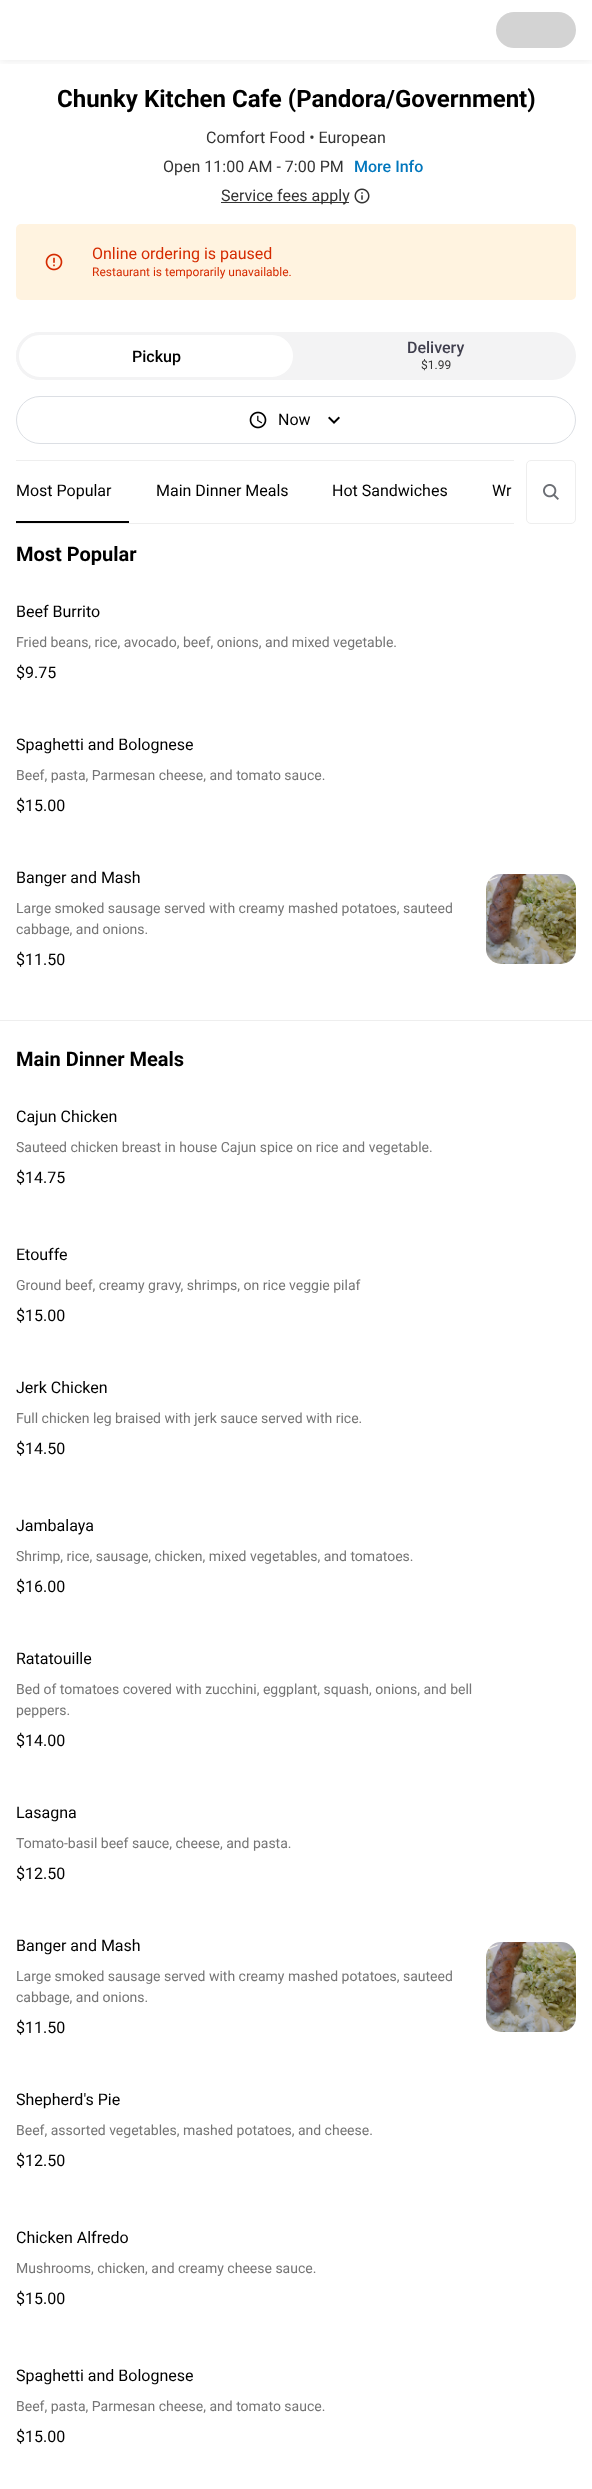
<svg xmlns="http://www.w3.org/2000/svg" width="592" height="2489" viewBox="0 0 592 2489">
  <style>
    .t1 { font: bold 24px Roboto; fill: #000; }
    .t2 { font: 16px Roboto; fill: #333; }
    .t3 { font: 500 16px Roboto; fill: #0277bd; }
    .t4 { font: 16px Roboto; fill: #d52b01; }
    .t5 { font: 12px Roboto; fill: #d52b01; }
    .t6 { font: 500 16px Roboto; fill: #403f4e; }
    .t7 { font: 12px Roboto; fill: #333; }
    .t8 { font: 500 16px Roboto; fill: #000; }
    .t9 { font: 16px Roboto; fill: #000; }
    .t10 { font: bold 20px Roboto; fill: #000; }
    .t11 { font: 14px Roboto; fill: #757575; }
  </style>
  <defs>
    <clipPath id="clip1"><rect x="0" y="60" width="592" height="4"/></clipPath>
  </defs>
  <rect width="100%" height="100%" fill="#fff"/>
  <g clip-path="url(#clip1)">
    <rect x="0" y="1" width="592" height="60" fill="#00000014" filter="blur(4px)"/>
  </g>
  <rect x="496" y="12" width="80" height="36" rx="18" fill="#d3d3d3"/>
  <text x="57" y="107" class="t1">Chunky Kitchen Cafe (Pandora/Government)</text>
  <text x="206" y="143" class="t2">Comfort Food • European</text>
  <text x="163" y="172" class="t2">Open 11:00 AM - 7:00 PM</text>
  <text x="354" y="172" class="t3">More Info</text>
  <rect x="221" y="202" width="128" height="1" fill="#333"/>
  <text x="221" y="201" class="t2">Service fees apply</text>
  <image x="354" y="188" width="16" height="16" href="images/1.png"/>
  <rect x="16" y="224" width="560" height="76" rx="5" fill="#fff3e0"/>
  <image x="45" y="253" width="18" height="18" href="images/2.png"/>
  <text x="92" y="259" class="t4">Online ordering is paused</text>
  <text x="92" y="276" class="t5">Restaurant is temporarily unavailable.</text>
  <rect x="16" y="332" width="560" height="48" rx="24" fill="#f3f3f4"/>
  <rect x="17.5" y="333.5" width="277" height="45" rx="22.5" fill="#fff" stroke="#f3f3f4" stroke-width="3"/>
  <text x="407" y="353" class="t6">Delivery</text>
  <text x="421" y="369" class="t7">$1.99</text>
  <text x="132" y="362" class="t8">Pickup</text>
  <rect x="16.5" y="396.5" width="559" height="47" rx="23.5" fill="none" stroke="#dcdfe4"/>
  <image x="249" y="411" width="18" height="18" href="images/3.png"/>
  <text x="278" y="425" class="t9">Now</text>
  <image x="328" y="416" width="12" height="8" href="images/4.png"/>
  <rect x="16" y="460" width="498" height="1" fill="#eee"/>
  <rect x="16" y="523" width="498" height="1" fill="#eee"/>
  <rect x="16" y="521" width="113" height="2" fill="#000"/>
  <text x="16" y="496" class="t9">Most Popular</text>
  <text x="156" y="496" class="t9">Main Dinner Meals</text>
  <text x="332" y="496" class="t9">Hot Sandwiches</text>
  <text x="492" y="496" class="t9">Wr</text>
  <rect x="526.5" y="460.5" width="49" height="63" rx="4.5" fill="none" stroke="#eee"/>
  <image x="543" y="484" width="16" height="16" href="images/5.png"/>
  <rect x="0" y="1020" width="592" height="1" fill="#eee"/>
  <text x="16" y="561" class="t10">Most Popular</text>
  <text x="16" y="617" class="t9">Beef Burrito</text>
  <text x="16" y="647" class="t11">Fried beans, rice, avocado, beef, onions, and mixed vegetable.</text>
  <text x="16" y="678" class="t9">$9.75</text>
  <text x="16" y="750" class="t9">Spaghetti and Bolognese</text>
  <text x="16" y="780" class="t11">Beef, pasta, Parmesan cheese, and tomato sauce.</text>
  <text x="16" y="811" class="t9">$15.00</text>
  <text x="16" y="883" class="t9">Banger and Mash</text>
  <text x="16" y="913" class="t11">Large smoked sausage served with creamy mashed potatoes, sauteed</text>
  <text x="16" y="934" class="t11">cabbage, and onions.</text>
  <text x="16" y="965" class="t9">$11.50</text>
  <image x="486" y="874" width="90" height="90" href="images/6.png"/>
  <text x="16" y="1066" class="t10">Main Dinner Meals</text>
  <text x="16" y="1122" class="t9">Cajun Chicken</text>
  <text x="16" y="1152" class="t11">Sauteed chicken breast in house Cajun spice on rice and vegetable.</text>
  <text x="16" y="1183" class="t9">$14.75</text>
  <text x="16" y="1260" class="t9">Etouffe</text>
  <text x="16" y="1290" class="t11">Ground beef, creamy gravy, shrimps, on rice veggie pilaf</text>
  <text x="16" y="1321" class="t9">$15.00</text>
  <text x="16" y="1393" class="t9">Jerk Chicken</text>
  <text x="16" y="1423" class="t11">Full chicken leg braised with jerk sauce served with rice.</text>
  <text x="16" y="1454" class="t9">$14.50</text>
  <text x="16" y="1531" class="t9">Jambalaya</text>
  <text x="16" y="1561" class="t11">Shrimp, rice, sausage, chicken, mixed vegetables, and tomatoes.</text>
  <text x="16" y="1592" class="t9">$16.00</text>
  <text x="16" y="1664" class="t9">Ratatouille</text>
  <text x="16" y="1694" class="t11">Bed of tomatoes covered with zucchini, eggplant, squash, onions, and bell</text>
  <text x="16" y="1715" class="t11">peppers.</text>
  <text x="16" y="1746" class="t9">$14.00</text>
  <text x="16" y="1818" class="t9">Lasagna</text>
  <text x="16" y="1848" class="t11">Tomato-basil beef sauce, cheese, and pasta.</text>
  <text x="16" y="1879" class="t9">$12.50</text>
  <text x="16" y="1951" class="t9">Banger and Mash</text>
  <text x="16" y="1981" class="t11">Large smoked sausage served with creamy mashed potatoes, sauteed</text>
  <text x="16" y="2002" class="t11">cabbage, and onions.</text>
  <text x="16" y="2033" class="t9">$11.50</text>
  <image x="486" y="1942" width="90" height="90" href="images/6.png"/>
  <text x="16" y="2105" class="t9">Shepherd's Pie</text>
  <text x="16" y="2135" class="t11">Beef, assorted vegetables, mashed potatoes, and cheese.</text>
  <text x="16" y="2166" class="t9">$12.50</text>
  <text x="16" y="2243" class="t9">Chicken Alfredo</text>
  <text x="16" y="2273" class="t11">Mushrooms, chicken, and creamy cheese sauce.</text>
  <text x="16" y="2304" class="t9">$15.00</text>
  <text x="16" y="2381" class="t9">Spaghetti and Bolognese</text>
  <text x="16" y="2411" class="t11">Beef, pasta, Parmesan cheese, and tomato sauce.</text>
  <text x="16" y="2442" class="t9">$15.00</text>
</svg>
